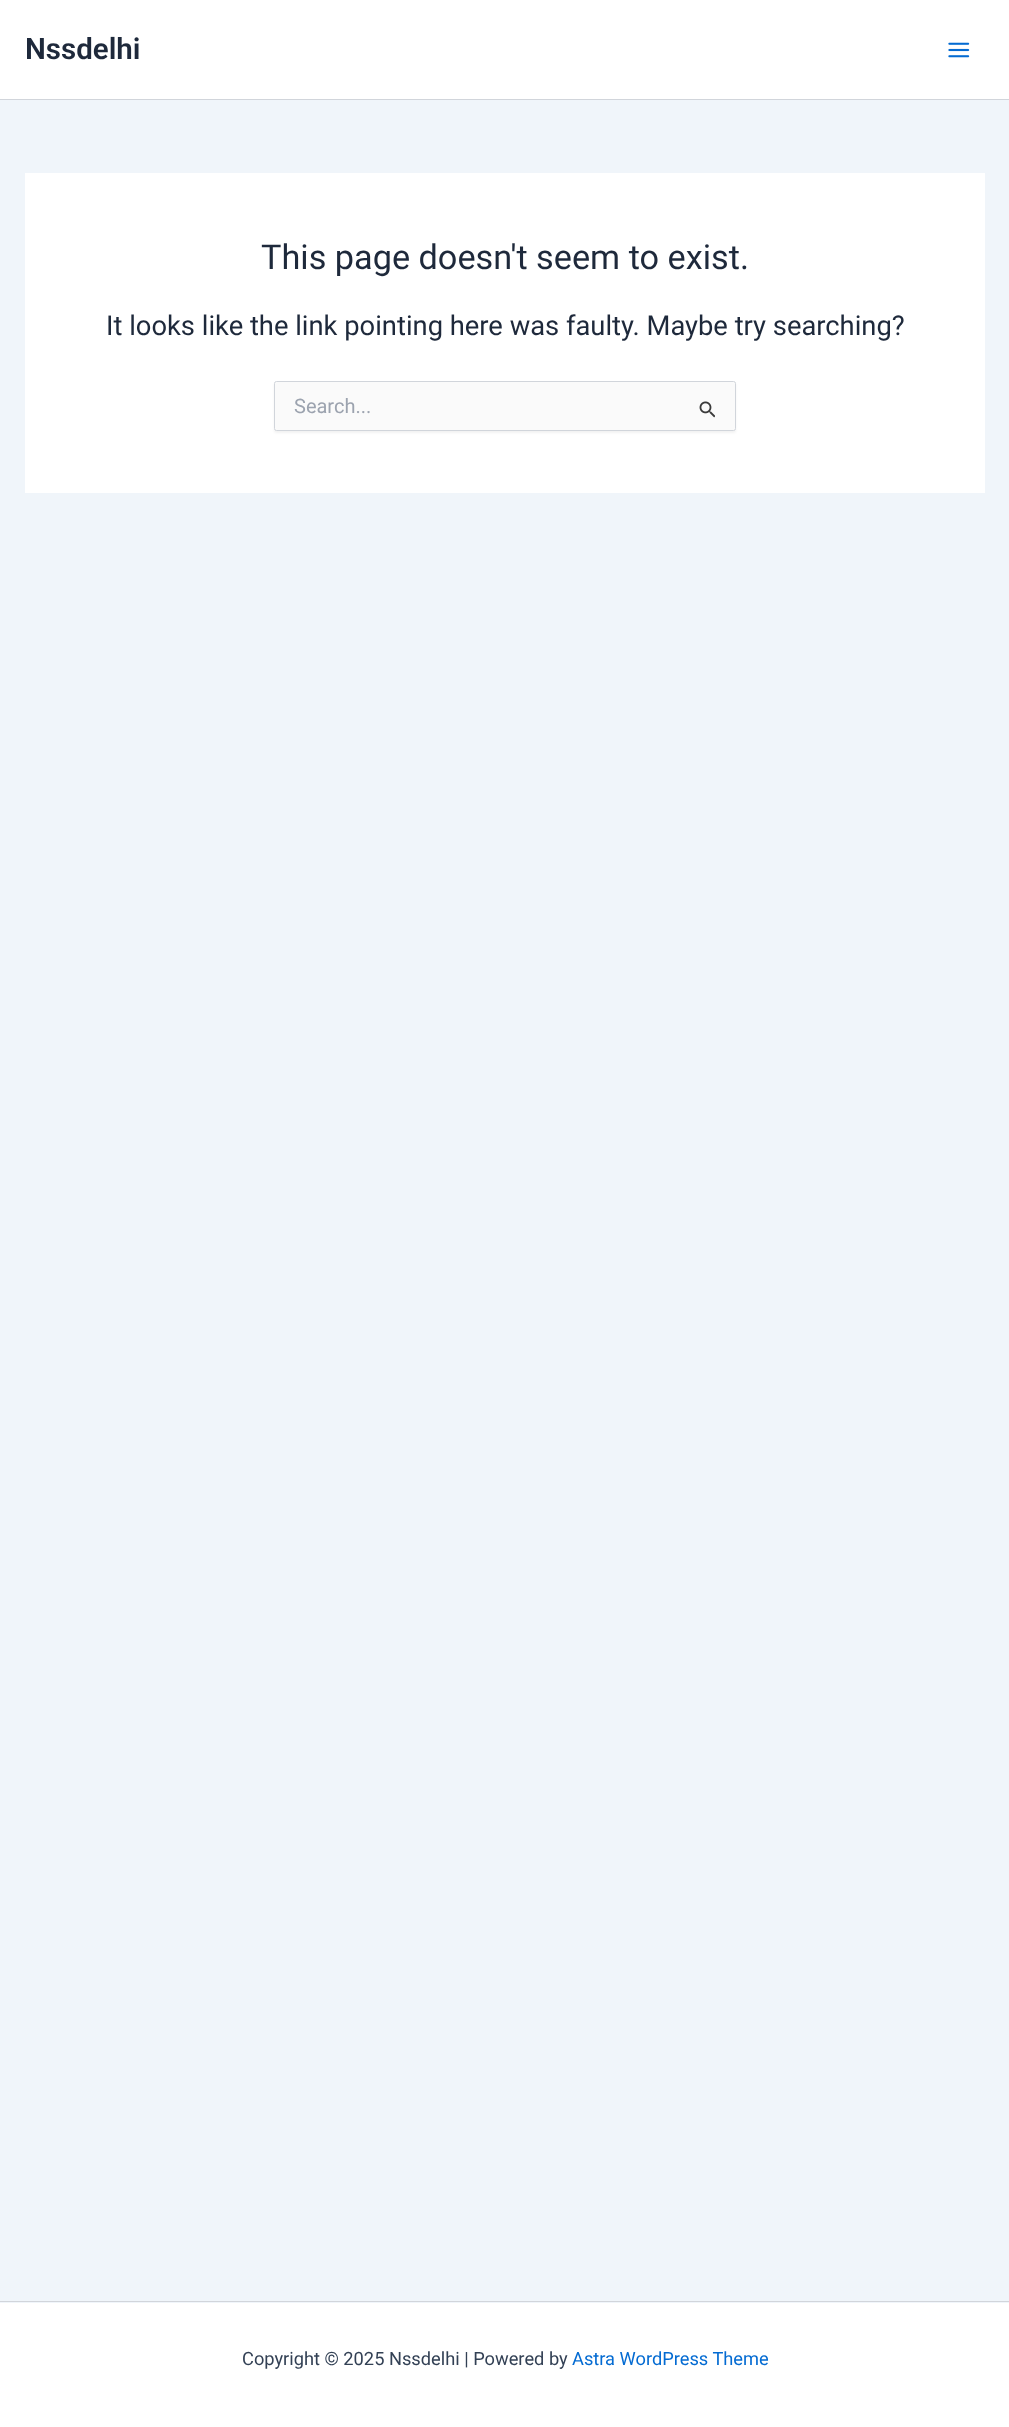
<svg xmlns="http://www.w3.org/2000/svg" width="1009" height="2427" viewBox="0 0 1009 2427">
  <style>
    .t1 { font: 600 29.5px Roboto; fill: #1e293b; }
    .t2 { font: 34.25px Roboto; fill: #1e293b; }
    .t3 { font: 27.35px Roboto; fill: #1e293b; }
    .t4 { font: 20px Roboto; fill: #9ca3af; }
    .t5 { font: 18.25px Roboto; fill: #334155; }
    .t6 { font: 18.25px Roboto; fill: #046bd2; }
  </style>
  <rect width="100%" height="100%" fill="#f0f5fa"/>
  <rect x="0" y="0" width="1009" height="99" fill="#fff"/>
  <rect x="0" y="99" width="1009" height="1" fill="#d1d5db"/>
  <text x="25" y="59" class="t1">Nssdelhi</text>
  <image x="948" y="42" width="22" height="16" href="images/1.png"/>
  <rect x="25" y="173" width="960" height="320" fill="#fff"/>
  <text x="261" y="269" class="t2">This page doesn't seem to exist.</text>
  <text x="106" y="335" class="t3">It looks like the link pointing here was faulty. Maybe try searching?</text>
  <rect x="274" y="383" width="462" height="50" rx="2.5" fill="#0000000d" filter="blur(1px)"/>
  <rect x="274.5" y="381.5" width="461" height="49" rx="2" fill="#fafafa" stroke="#d1d5db"/>
  <text x="294" y="413" class="t4">Search...</text>
  <image x="699" y="401" width="16" height="17" href="images/2.png"/>
  <rect x="0" y="2303" width="1009" height="124" fill="#fff"/>
  <rect x="0" y="2301" width="1009" height="1" fill="#d1d5db"/>
  <text x="242" y="2365" class="t5">Copyright © 2025 Nssdelhi | Powered by</text>
  <text x="572" y="2365" class="t6">Astra WordPress Theme</text>
</svg>
